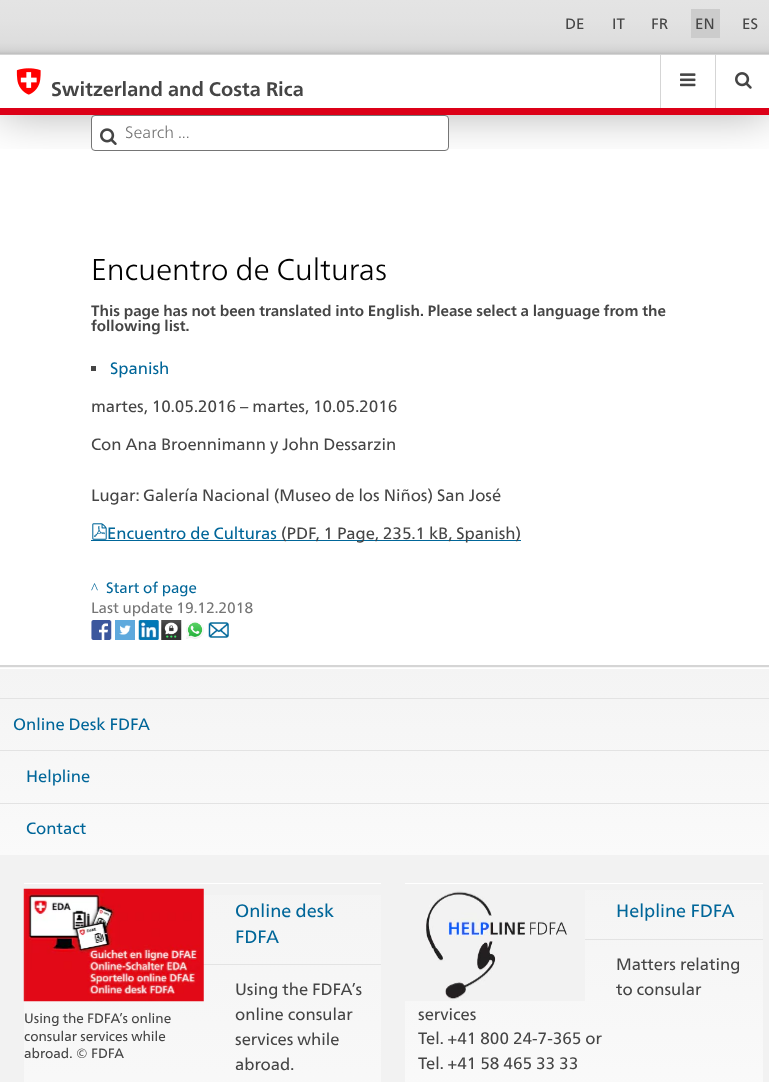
<svg xmlns="http://www.w3.org/2000/svg" width="769" height="1082" viewBox="0 0 769 1082">
  <style>
    .t1 { font: 15px 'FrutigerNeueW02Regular'; fill: #454545; }
    .t2 { font: bold 19.75px 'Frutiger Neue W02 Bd'; fill: #454545; }
    .t3 { font: 300 16.5px 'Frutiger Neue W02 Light'; fill: #757575; }
    .t4 { font: 300 30px 'Frutiger Neue W02 Light'; fill: #000; }
    .t5 { font: bold 15px 'Frutiger Neue W02 Bd'; fill: #454545; }
    .t6 { font: 16.5px 'FrutigerNeueW02Regular'; fill: #069; }
    .t7 { font: 16.5px 'FrutigerNeueW02Regular'; fill: #454545; }
    .t8 { font: 15px Liberation Serif; fill: #069; }
    .t9 { font: 15px 'FrutigerNeueW02Regular'; fill: #069; }
    .t10 { font: 15px 'FrutigerNeueW02Regular'; fill: #757575; }
    .t11 { font: 18px 'FrutigerNeueW02Regular'; fill: #069; }
    .t12 { font: 13.5px 'FrutigerNeueW02Regular'; fill: #454545; }
  </style>
  <defs>
    <clipPath id="clip1"><rect x="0" y="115" width="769" height="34"/></clipPath>
    <linearGradient id="g1" gradientUnits="userSpaceOnUse" x1="385" y1="0" x2="385" y2="54"><stop offset="0" stop-color="#e4e4e4"/><stop offset="0.39" stop-color="#e2e2e2"/><stop offset="0.79" stop-color="#ddd"/><stop offset="0.91" stop-color="#d5d5d5"/><stop offset="0.95" stop-color="#cfcfcf"/><stop offset="1" stop-color="#bebebe"/></linearGradient>
    <linearGradient id="g2" gradientUnits="userSpaceOnUse" x1="385" y1="668" x2="385" y2="855"><stop offset="0" stop-color="#f4f4f4"/><stop offset="1" stop-color="#fafafa"/></linearGradient>
    <linearGradient id="g3" gradientUnits="userSpaceOnUse" x1="202" y1="870" x2="203" y2="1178"><stop offset="0" stop-color="#f4f4f4"/><stop offset="1" stop-color="#fafafa"/></linearGradient>
    <linearGradient id="g4" gradientUnits="userSpaceOnUse" x1="584" y1="870" x2="584" y2="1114"><stop offset="0" stop-color="#f4f4f4"/><stop offset="1" stop-color="#fafafa"/></linearGradient>
  </defs>
  <rect width="100%" height="100%" fill="#fff"/>
  <g clip-path="url(#clip1)">
    <rect x="0" y="55" width="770" height="60" fill="#0000004d" filter="blur(22.5px)"/>
  </g>
  <rect x="0" y="0" width="769" height="54" fill="url(#g1)"/>
  <rect x="0" y="54" width="769" height="1" fill="#d5d5d5"/>
  <text x="565" y="29" class="t1">DE</text>
  <text x="612" y="29" class="t1">IT</text>
  <text x="651" y="29" class="t1">FR</text>
  <rect x="691" y="9" width="29" height="29" fill="#ccc"/>
  <text x="695" y="29" class="t1">EN</text>
  <text x="742" y="29" class="t1">ES</text>
  <rect x="0" y="108" width="769" height="7" fill="#dc0018"/>
  <image x="16" y="68" width="25" height="27" href="images/1.png"/>
  <text x="51" y="96" class="t2">Switzerland and Costa Rica</text>
  <rect x="660" y="55" width="1" height="53" fill="#d5d5d5"/>
  <image x="680" y="73" width="16" height="14" href="images/2.png"/>
  <rect x="715" y="55" width="1" height="53" fill="#d5d5d5"/>
  <image x="735" y="72" width="17" height="17" href="images/3.png"/>
  <rect x="91.5" y="115.5" width="357" height="35" rx="3.5" fill="#fff" stroke="#757575"/>
  <image x="100" y="128" width="17" height="17" href="images/4.png"/>
  <text x="125" y="138" class="t3">Search ...</text>
  <text x="91" y="280" class="t4">Encuentro de Culturas</text>
  <text x="91" y="316" class="t5">This page has not been translated into English. Please select a language from the</text>
  <text x="91" y="331" class="t5">following list.</text>
  <rect x="91" y="366" width="5" height="5" fill="#454545"/>
  <text x="110" y="374" class="t6">Spanish</text>
  <text x="91" y="412" class="t7">martes, 10.05.2016 – martes, 10.05.2016</text>
  <text x="91" y="450" class="t7">Con Ana Broennimann y John Dessarzin</text>
  <text x="91" y="501" class="t7">Lugar: Galería Nacional (Museo de los Niños) San José</text>
  <image x="92" y="523" width="15" height="17" href="images/5.png"/>
  <text x="107" y="539" class="t6">Encuentro de Culturas</text>
  <rect x="91" y="540" width="430" height="1" fill="#069"/>
  <text x="281" y="539" class="t7">(PDF, 1 Page, 235.1 kB, Spanish)</text>
  <text x="91" y="593" class="t8">^</text>
  <text x="106" y="593" class="t9">Start of page</text>
  <text x="91" y="613" class="t10">Last update 19.12.2018</text>
  <image x="91" y="620" width="21" height="20" href="images/6.png"/>
  <image x="115" y="620" width="20" height="20" href="images/7.png"/>
  <image x="138" y="620" width="21" height="20" href="images/8.png"/>
  <image x="161" y="620" width="21" height="20" href="images/9.png"/>
  <image x="186" y="621" width="18" height="18" href="images/10.png"/>
  <image x="208" y="622" width="21" height="16" href="images/11.png"/>
  <rect x="0" y="855" width="769" height="227" fill="#f2f2f2"/>
  <rect x="0" y="665" width="769" height="2" fill="#d5d5d5"/>
  <rect x="0" y="667" width="769" height="1" fill="#f6f6f6"/>
  <rect x="0" y="669" width="769" height="186" fill="url(#g2)"/>
  <rect x="0" y="698" width="769" height="1" fill="#e3e3e3"/>
  <text x="13" y="730" class="t6">Online Desk FDFA</text>
  <rect x="0" y="750" width="769" height="1" fill="#e3e3e3"/>
  <text x="26" y="782" class="t6">Helpline</text>
  <rect x="0" y="803" width="769" height="1" fill="#e3e3e3"/>
  <text x="26" y="834" class="t6">Contact</text>
  <rect x="24" y="895" width="357" height="187" fill="url(#g3)"/>
  <rect x="24" y="883" width="357" height="1" fill="#fff"/>
  <rect x="203" y="964" width="178" height="1" fill="#e3e3e3"/>
  <text x="235" y="917" class="t11">Online desk</text>
  <text x="235" y="943" class="t11">FDFA</text>
  <image x="23" y="888" width="181" height="114" href="images/12.png"/>
  <text x="24" y="1023" class="t12">Using the FDFA’s online</text>
  <text x="24" y="1041" class="t12">consular services while</text>
  <text x="24" y="1058" class="t12">abroad. © FDFA</text>
  <text x="235" y="995" class="t7">Using the FDFA’s</text>
  <text x="235" y="1020" class="t7">online consular</text>
  <text x="235" y="1045" class="t7">services while</text>
  <text x="235" y="1070" class="t7">abroad.</text>
  <rect x="405" y="890" width="358" height="192" fill="url(#g4)"/>
  <image x="405" y="890" width="180" height="111" href="images/13.png"/>
  <rect x="405" y="883" width="358" height="1" fill="#fff"/>
  <rect x="585" y="939" width="178" height="1" fill="#e3e3e3"/>
  <text x="616" y="917" class="t11">Helpline FDFA</text>
  <text x="616" y="970" class="t7">Matters relating</text>
  <text x="616" y="995" class="t7">to consular</text>
  <text x="418" y="1020" class="t7">services</text>
  <text x="418" y="1044" class="t7">Tel. +41 800 24-7-365 or</text>
  <text x="418" y="1069" class="t7">Tel. +41 58 465 33 33</text>
</svg>
